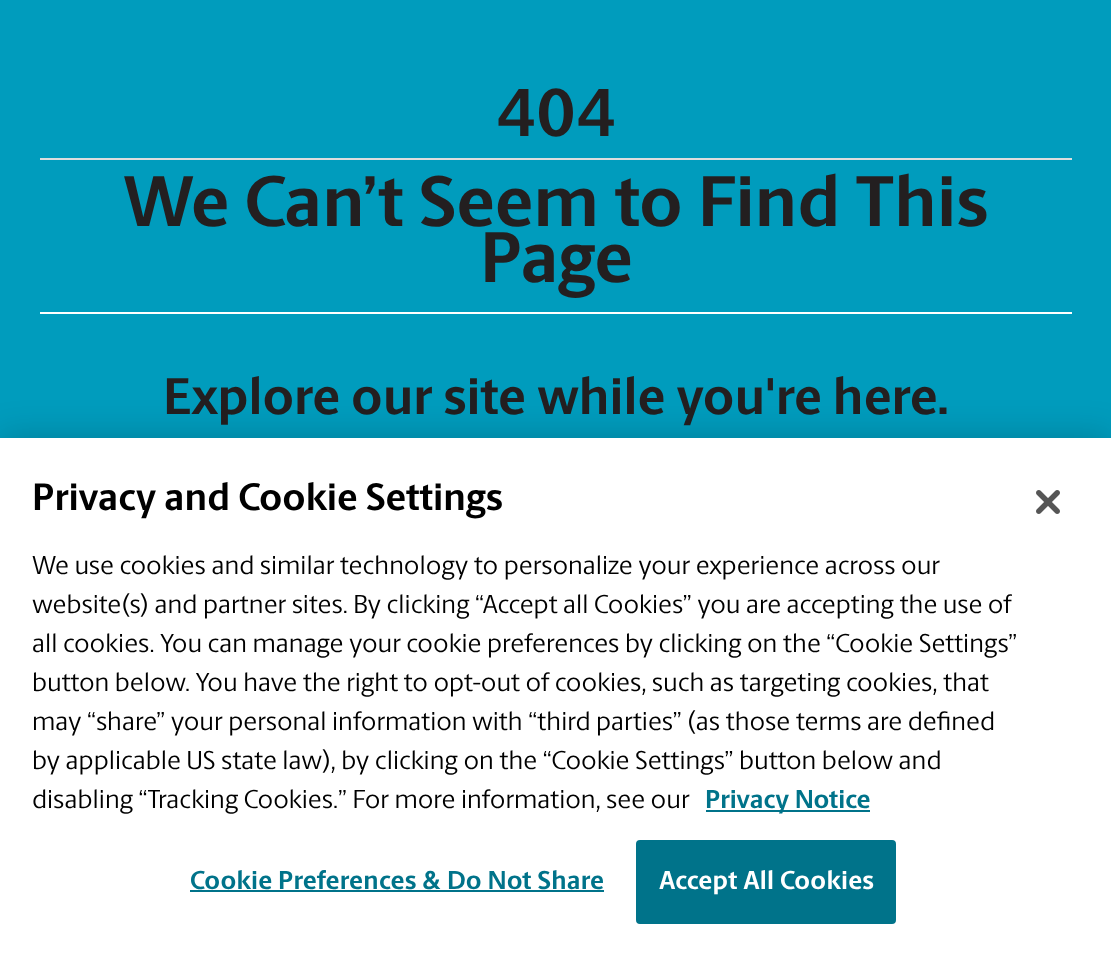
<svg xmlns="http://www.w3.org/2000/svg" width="1111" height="956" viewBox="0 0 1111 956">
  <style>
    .t1 { font: bold 68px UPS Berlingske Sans; fill: #231f20; }
    .t2 { font: bold 72px UPS Berlingske Sans; fill: #231f20; }
    .t3 { font: bold 52px UPS Berlingske Sans; fill: #231f20; }
    .t4 { font: bold 38.4px UPS Berlingske Sans; fill: #000; }
    .t5 { font: 26px UPS Berlingske Sans; fill: #000; }
    .t6 { font: bold 26px UPS Berlingske Sans; fill: #00738a; }
    .t7 { font: bold 26px UPS Berlingske Sans; letter-spacing: 0.25px; fill: #00738a; }
    .t8 { font: bold 26px UPS Berlingske Sans; letter-spacing: 0.25px; fill: #fff; }
  </style>
  <rect width="100%" height="100%" fill="#009cbd"/>
  <rect x="40" y="158" width="1032" height="2" fill="#dcddde"/>
  <text x="496" y="136" class="t1">404</text>
  <rect x="40" y="312" width="1032" height="2" fill="#fff"/>
  <text x="123" y="226" class="t2">We Can’t Seem to Find This</text>
  <text x="480" y="282" class="t2">Page</text>
  <text x="163" y="414" class="t3">Explore our site while you're here.</text>
  <rect x="0" y="438" width="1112" height="518" fill="#00000033" filter="blur(18px)"/>
  <rect x="0" y="438" width="1111" height="518" fill="#fff"/>
  <text x="32" y="510" class="t4">Privacy and Cookie Settings</text>
  <text x="32" y="574" class="t5">We use cookies and similar technology to personalize your experience across our</text>
  <text x="32" y="613" class="t5">website(s) and partner sites. By clicking “Accept all Cookies” you are accepting the use of</text>
  <text x="32" y="652" class="t5">all cookies. You can manage your cookie preferences by clicking on the “Cookie Settings”</text>
  <text x="32" y="691" class="t5">button below. You have the right to opt-out of cookies, such as targeting cookies, that</text>
  <text x="32" y="730" class="t5">may “share” your personal information with “third parties” (as those terms are defined</text>
  <text x="32" y="769" class="t5">by applicable US state law), by clicking on the “Cookie Settings” button below and</text>
  <text x="32" y="808" class="t5">disabling “Tracking Cookies.” For more information, see our</text>
  <rect x="706" y="810" width="164" height="2" fill="#00738a"/>
  <text x="705" y="808" class="t6">Privacy Notice</text>
  <text x="190" y="889" class="t7">Cookie Preferences &amp; Do Not Share</text>
  <rect x="190" y="890" width="414" height="2" fill="#00738a"/>
  <rect x="637" y="841" width="258" height="82" rx="3" fill="#00738a" stroke="#00738a" stroke-width="2"/>
  <text x="659" y="889" class="t8">Accept All Cookies</text>
  <image x="1036" y="490" width="24" height="24" href="images/1.png"/>
</svg>
